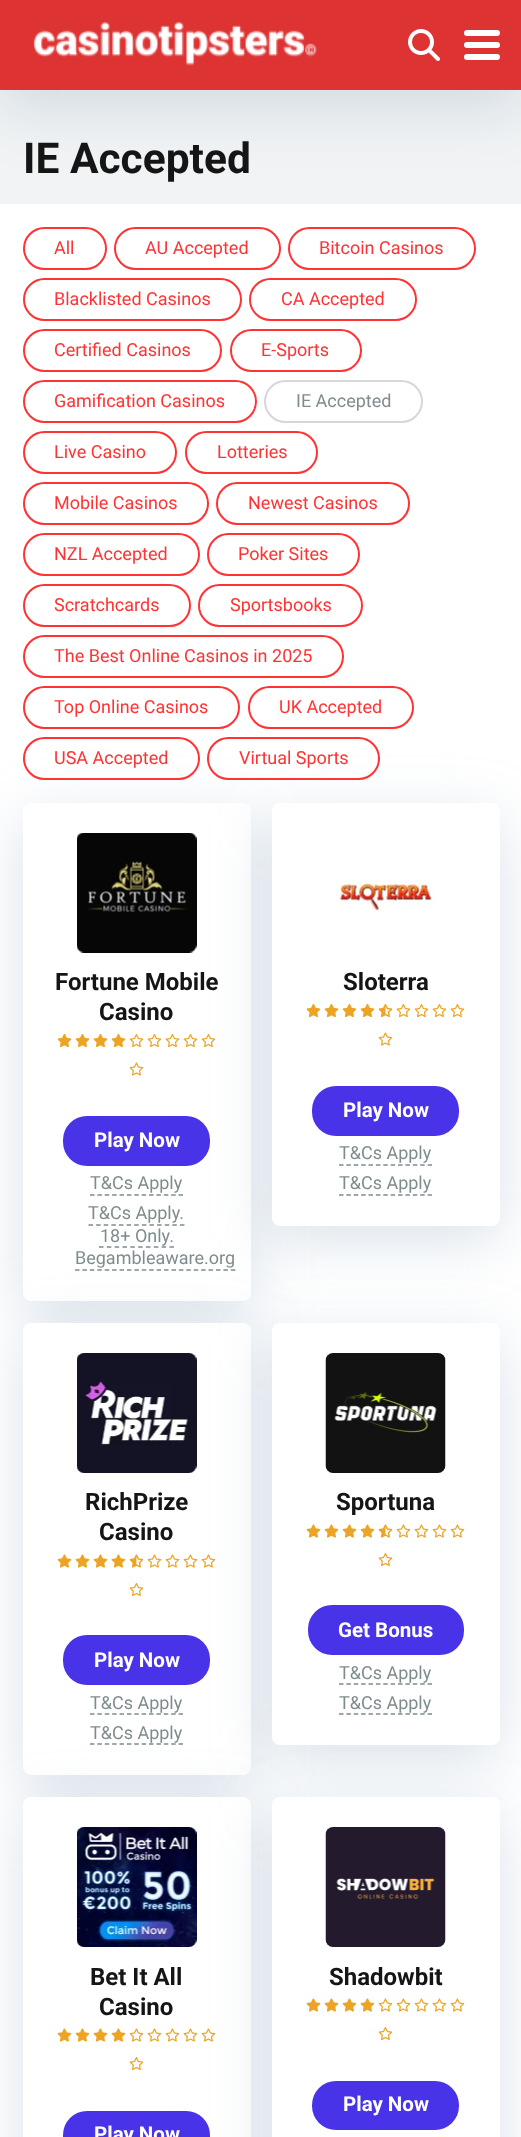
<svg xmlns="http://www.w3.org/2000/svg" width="521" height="2137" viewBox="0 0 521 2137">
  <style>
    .t1 { font: bold 42.5px Roboto; fill: #151515; }
    .t2 { font: 18px Roboto; fill: #f33; }
    .t3 { font: 18px Roboto; fill: #7f8c8d; }
    .t4 { font: bold 24px Roboto; fill: #151515; }
    .t5 { font: bold 20.5px Roboto; fill: #fff; }
  </style>
  <rect width="100%" height="100%" fill="#fff"/>
  <rect x="0" y="90" width="521" height="114" fill="#f1f3f4"/>
  <rect x="0" y="15" width="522" height="90" fill="#6d8dad40" filter="blur(30px)"/>
  <rect x="0" y="0" width="521" height="90" fill="#d33"/>
  <image x="33" y="22" width="284" height="44" href="images/1.png"/>
  <image x="408" y="29" width="32" height="32" href="images/2.png"/>
  <rect x="464" y="30" width="36" height="6" rx="3" fill="#fff"/>
  <rect x="464" y="42" width="36" height="6" rx="3" fill="#fff"/>
  <rect x="464" y="54" width="36" height="6" rx="3" fill="#fff"/>
  <text x="23" y="173" class="t1">IE Accepted</text>
  <rect x="24" y="228" width="82" height="41" rx="20.5" fill="none" stroke="#f33" stroke-width="2"/>
  <text x="54" y="254" class="t2">All</text>
  <rect x="115" y="228" width="165" height="41" rx="20.5" fill="none" stroke="#f33" stroke-width="2"/>
  <text x="145" y="254" class="t2">AU Accepted</text>
  <rect x="289" y="228" width="186" height="41" rx="20.5" fill="none" stroke="#f33" stroke-width="2"/>
  <text x="319" y="254" class="t2">Bitcoin Casinos</text>
  <rect x="24" y="279" width="217" height="41" rx="20.5" fill="none" stroke="#f33" stroke-width="2"/>
  <text x="54" y="305" class="t2">Blacklisted Casinos</text>
  <rect x="250" y="279" width="166" height="41" rx="20.5" fill="none" stroke="#f33" stroke-width="2"/>
  <text x="281" y="305" class="t2">CA Accepted</text>
  <rect x="24" y="330" width="197" height="41" rx="20.5" fill="none" stroke="#f33" stroke-width="2"/>
  <text x="54" y="356" class="t2">Certified Casinos</text>
  <rect x="231" y="330" width="130" height="41" rx="20.5" fill="none" stroke="#f33" stroke-width="2"/>
  <text x="261" y="356" class="t2">E-Sports</text>
  <rect x="24" y="381" width="232" height="41" rx="20.5" fill="none" stroke="#f33" stroke-width="2"/>
  <text x="54" y="407" class="t2">Gamification Casinos</text>
  <rect x="265" y="381" width="157" height="41" rx="20.5" fill="none" stroke="#d6d7db" stroke-width="2"/>
  <text x="296" y="407" class="t3">IE Accepted</text>
  <rect x="24" y="432" width="152" height="41" rx="20.5" fill="none" stroke="#f33" stroke-width="2"/>
  <text x="54" y="458" class="t2">Live Casino</text>
  <rect x="186" y="432" width="131" height="41" rx="20.5" fill="none" stroke="#f33" stroke-width="2"/>
  <text x="217" y="458" class="t2">Lotteries</text>
  <rect x="24" y="483" width="184" height="41" rx="20.5" fill="none" stroke="#f33" stroke-width="2"/>
  <text x="54" y="509" class="t2">Mobile Casinos</text>
  <rect x="217" y="483" width="192" height="41" rx="20.5" fill="none" stroke="#f33" stroke-width="2"/>
  <text x="248" y="509" class="t2">Newest Casinos</text>
  <rect x="24" y="534" width="175" height="41" rx="20.5" fill="none" stroke="#f33" stroke-width="2"/>
  <text x="54" y="560" class="t2">NZL Accepted</text>
  <rect x="208" y="534" width="151" height="41" rx="20.5" fill="none" stroke="#f33" stroke-width="2"/>
  <text x="238" y="560" class="t2">Poker Sites</text>
  <rect x="24" y="585" width="166" height="41" rx="20.5" fill="none" stroke="#f33" stroke-width="2"/>
  <text x="54" y="611" class="t2">Scratchcards</text>
  <rect x="199" y="585" width="163" height="41" rx="20.5" fill="none" stroke="#f33" stroke-width="2"/>
  <text x="230" y="611" class="t2">Sportsbooks</text>
  <rect x="24" y="636" width="319" height="41" rx="20.5" fill="none" stroke="#f33" stroke-width="2"/>
  <text x="54" y="662" class="t2">The Best Online Casinos in 2025</text>
  <rect x="24" y="687" width="215" height="41" rx="20.5" fill="none" stroke="#f33" stroke-width="2"/>
  <text x="54" y="713" class="t2">Top Online Casinos</text>
  <rect x="249" y="687" width="164" height="41" rx="20.5" fill="none" stroke="#f33" stroke-width="2"/>
  <text x="279" y="713" class="t2">UK Accepted</text>
  <rect x="24" y="738" width="175" height="41" rx="20.5" fill="none" stroke="#f33" stroke-width="2"/>
  <text x="54" y="764" class="t2">USA Accepted</text>
  <rect x="208" y="738" width="171" height="41" rx="20.5" fill="none" stroke="#f33" stroke-width="2"/>
  <text x="239" y="764" class="t2">Virtual Sports</text>
  <rect x="23" y="818" width="228" height="498" rx="8" fill="#6d8dad40" filter="blur(30px)"/>
  <rect x="23" y="803" width="228" height="498" rx="8" fill="#fff"/>
  <image x="77" y="833" width="120" height="120" href="images/3.png"/>
  <text x="55" y="990" class="t4">Fortune Mobile</text>
  <text x="99" y="1020" class="t4">Casino</text>
  <image x="57" y="1034" width="15" height="14" href="images/4.png"/>
  <image x="75" y="1034" width="15" height="14" href="images/4.png"/>
  <image x="93" y="1034" width="15" height="14" href="images/4.png"/>
  <image x="111" y="1034" width="15" height="14" href="images/4.png"/>
  <image x="129" y="1034" width="15" height="14" href="images/5.png"/>
  <image x="147" y="1034" width="15" height="14" href="images/5.png"/>
  <image x="165" y="1034" width="15" height="14" href="images/5.png"/>
  <image x="183" y="1034" width="15" height="14" href="images/5.png"/>
  <image x="201" y="1034" width="15" height="14" href="images/5.png"/>
  <image x="129" y="1062" width="15" height="14" href="images/6.png"/>
  <rect x="63" y="1116" width="147" height="50" rx="24" fill="#4833e8"/>
  <text x="94" y="1147" class="t5">Play Now</text>
  <text x="90" y="1189" class="t3">T&amp;Cs Apply</text>
  <path d="M90 1195H183" fill="none" stroke="#7f8c8d" stroke-width="1.5" stroke-dasharray="4.5 2.88"/>
  <text x="88" y="1219" class="t3">T&amp;Cs Apply.</text>
  <path d="M88.5 1225H184.5" fill="none" stroke="#7f8c8d" stroke-width="1.5" stroke-dasharray="4.5 3.12"/>
  <text x="100" y="1242" class="t3">18+ Only.</text>
  <path d="M99 1247H174" fill="none" stroke="#7f8c8d" stroke-width="1.5" stroke-dasharray="4.5 3.33"/>
  <text x="75" y="1264" class="t3">Begambleaware.org</text>
  <path d="M75 1270H235.5" fill="none" stroke="#7f8c8d" stroke-width="1.5" stroke-dasharray="4.5 2.92"/>
  <rect x="272" y="818" width="228" height="423" rx="8" fill="#6d8dad40" filter="blur(30px)"/>
  <rect x="272" y="803" width="228" height="423" rx="8" fill="#fff"/>
  <image x="338" y="880" width="99" height="33" href="images/7.png"/>
  <text x="343" y="990" class="t4">Sloterra</text>
  <image x="306" y="1004" width="15" height="14" href="images/4.png"/>
  <image x="324" y="1004" width="15" height="14" href="images/4.png"/>
  <image x="342" y="1004" width="15" height="14" href="images/4.png"/>
  <image x="360" y="1004" width="15" height="14" href="images/4.png"/>
  <image x="378" y="1004" width="15" height="14" href="images/8.png"/>
  <image x="396" y="1004" width="15" height="14" href="images/5.png"/>
  <image x="414" y="1004" width="15" height="14" href="images/5.png"/>
  <image x="432" y="1004" width="15" height="14" href="images/5.png"/>
  <image x="450" y="1004" width="15" height="14" href="images/5.png"/>
  <image x="378" y="1032" width="15" height="14" href="images/6.png"/>
  <rect x="312" y="1086" width="147" height="50" rx="24" fill="#4833e8"/>
  <text x="343" y="1117" class="t5">Play Now</text>
  <text x="339" y="1159" class="t3">T&amp;Cs Apply</text>
  <path d="M339 1165H432" fill="none" stroke="#7f8c8d" stroke-width="1.5" stroke-dasharray="4.5 2.88"/>
  <text x="339" y="1189" class="t3">T&amp;Cs Apply</text>
  <path d="M339 1195H432" fill="none" stroke="#7f8c8d" stroke-width="1.5" stroke-dasharray="4.5 2.88"/>
  <rect x="23" y="1338" width="228" height="452" rx="8" fill="#6d8dad40" filter="blur(30px)"/>
  <rect x="23" y="1323" width="228" height="452" rx="8" fill="#fff"/>
  <image x="77" y="1353" width="120" height="120" href="images/9.png"/>
  <text x="85" y="1510" class="t4">RichPrize</text>
  <text x="99" y="1540" class="t4">Casino</text>
  <image x="57" y="1554" width="15" height="14" href="images/10.png"/>
  <image x="75" y="1554" width="15" height="14" href="images/10.png"/>
  <image x="93" y="1554" width="15" height="14" href="images/10.png"/>
  <image x="111" y="1554" width="15" height="14" href="images/10.png"/>
  <image x="129" y="1554" width="15" height="14" href="images/11.png"/>
  <image x="147" y="1554" width="15" height="14" href="images/6.png"/>
  <image x="165" y="1554" width="15" height="14" href="images/6.png"/>
  <image x="183" y="1554" width="15" height="14" href="images/6.png"/>
  <image x="201" y="1554" width="15" height="14" href="images/6.png"/>
  <image x="129" y="1583" width="15" height="14" href="images/5.png"/>
  <rect x="63" y="1635" width="147" height="50" rx="24" fill="#4833e8"/>
  <text x="94" y="1667" class="t5">Play Now</text>
  <text x="90" y="1709" class="t3">T&amp;Cs Apply</text>
  <path d="M90 1714H183" fill="none" stroke="#7f8c8d" stroke-width="1.5" stroke-dasharray="4.5 2.88"/>
  <text x="90" y="1739" class="t3">T&amp;Cs Apply</text>
  <path d="M90 1744H183" fill="none" stroke="#7f8c8d" stroke-width="1.5" stroke-dasharray="4.5 2.88"/>
  <rect x="272" y="1338" width="228" height="422" rx="8" fill="#6d8dad40" filter="blur(30px)"/>
  <rect x="272" y="1323" width="228" height="422" rx="8" fill="#fff"/>
  <image x="325" y="1353" width="121" height="120" href="images/12.png"/>
  <text x="336" y="1510" class="t4">Sportuna</text>
  <image x="306" y="1524" width="15" height="14" href="images/10.png"/>
  <image x="324" y="1524" width="15" height="14" href="images/10.png"/>
  <image x="342" y="1524" width="15" height="14" href="images/10.png"/>
  <image x="360" y="1524" width="15" height="14" href="images/10.png"/>
  <image x="378" y="1524" width="15" height="14" href="images/11.png"/>
  <image x="396" y="1524" width="15" height="14" href="images/6.png"/>
  <image x="414" y="1524" width="15" height="14" href="images/6.png"/>
  <image x="432" y="1524" width="15" height="14" href="images/6.png"/>
  <image x="450" y="1524" width="15" height="14" href="images/6.png"/>
  <image x="378" y="1553" width="15" height="14" href="images/5.png"/>
  <rect x="308" y="1605" width="156" height="50" rx="24" fill="#4833e8"/>
  <text x="338" y="1637" class="t5">Get Bonus</text>
  <text x="339" y="1679" class="t3">T&amp;Cs Apply</text>
  <path d="M339 1684H432" fill="none" stroke="#7f8c8d" stroke-width="1.5" stroke-dasharray="4.5 2.88"/>
  <text x="339" y="1709" class="t3">T&amp;Cs Apply</text>
  <path d="M339 1714H432" fill="none" stroke="#7f8c8d" stroke-width="1.5" stroke-dasharray="4.5 2.88"/>
  <rect x="23" y="1812" width="228" height="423" rx="8" fill="#6d8dad40" filter="blur(30px)"/>
  <rect x="23" y="1797" width="228" height="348" rx="8" fill="#fff"/>
  <image x="77" y="1827" width="120" height="120" href="images/13.png"/>
  <text x="90" y="1985" class="t4">Bet It All</text>
  <text x="99" y="2015" class="t4">Casino</text>
  <image x="57" y="2028" width="15" height="14" href="images/10.png"/>
  <image x="75" y="2028" width="15" height="14" href="images/10.png"/>
  <image x="93" y="2028" width="15" height="14" href="images/10.png"/>
  <image x="111" y="2028" width="15" height="14" href="images/10.png"/>
  <image x="129" y="2028" width="15" height="14" href="images/6.png"/>
  <image x="147" y="2028" width="15" height="14" href="images/6.png"/>
  <image x="165" y="2028" width="15" height="14" href="images/6.png"/>
  <image x="183" y="2028" width="15" height="14" href="images/6.png"/>
  <image x="201" y="2028" width="15" height="14" href="images/6.png"/>
  <image x="129" y="2057" width="15" height="14" href="images/5.png"/>
  <rect x="63" y="2111" width="147" height="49" rx="24" fill="#4833e8"/>
  <text x="94" y="2141" class="t5">Play Now</text>
  <rect x="272" y="1812" width="228" height="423" rx="8" fill="#6d8dad40" filter="blur(30px)"/>
  <rect x="272" y="1797" width="228" height="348" rx="8" fill="#fff"/>
  <image x="325" y="1827" width="121" height="120" href="images/14.png"/>
  <text x="329" y="1985" class="t4">Shadowbit</text>
  <image x="306" y="1998" width="15" height="14" href="images/10.png"/>
  <image x="324" y="1998" width="15" height="14" href="images/10.png"/>
  <image x="342" y="1998" width="15" height="14" href="images/10.png"/>
  <image x="360" y="1998" width="15" height="14" href="images/10.png"/>
  <image x="378" y="1998" width="15" height="14" href="images/6.png"/>
  <image x="396" y="1998" width="15" height="14" href="images/6.png"/>
  <image x="414" y="1998" width="15" height="14" href="images/6.png"/>
  <image x="432" y="1998" width="15" height="14" href="images/6.png"/>
  <image x="450" y="1998" width="15" height="14" href="images/6.png"/>
  <image x="378" y="2027" width="15" height="14" href="images/5.png"/>
  <rect x="312" y="2081" width="147" height="49" rx="24" fill="#4833e8"/>
  <text x="343" y="2111" class="t5">Play Now</text>
</svg>
